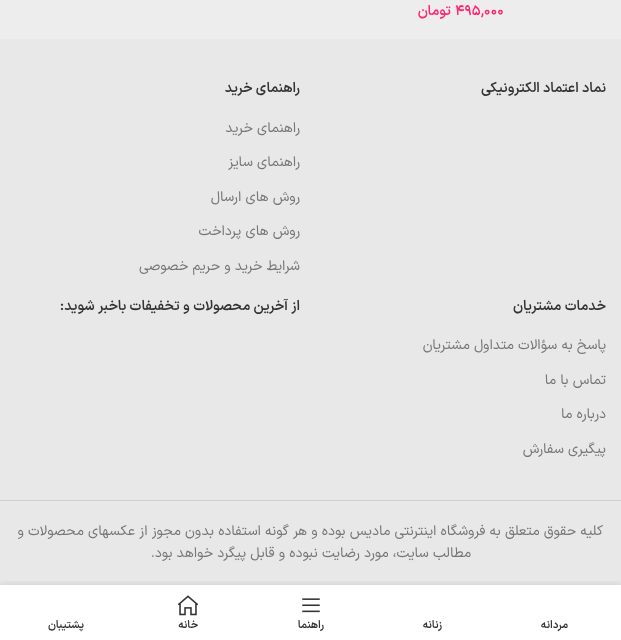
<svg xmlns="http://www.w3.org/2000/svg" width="621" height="640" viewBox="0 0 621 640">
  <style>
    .t1 { font: 600 14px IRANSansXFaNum; fill: #ff276e; }
    .t2 { font: 600 14px IRANSansXFaNum; direction: rtl; fill: #ff276e; }
    .t3 { font: 600 14px IRANSansXFaNum; direction: rtl; fill: #333; }
    .t4 { font: 14px IRANSansXFaNum; direction: rtl; fill: #767676; }
    .t5 { font: 600 11px IRANSansXFaNum; direction: rtl; fill: #333; }
  </style>
  <defs>
    <clipPath id="clip1"><rect x="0" y="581" width="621" height="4"/></clipPath>
  </defs>
  <rect width="100%" height="100%" fill="#fff"/>
  <rect x="0" y="0" width="621" height="39" fill="#ededed"/>
  <text x="455" y="15" class="t1">۴۹۵,۰۰۰</text>
  <text x="451" y="15" class="t2">تومان</text>
  <rect x="0" y="39" width="621" height="546" fill="#e8e8e8"/>
  <text x="606" y="92" class="t3">نماد اعتماد الکترونیکی</text>
  <text x="300" y="92" class="t3">راهنمای خرید</text>
  <text x="300" y="132" class="t4">راهنمای خرید</text>
  <text x="300" y="166" class="t4">راهنمای سایز</text>
  <text x="300" y="201" class="t4">روش های ارسال</text>
  <text x="300" y="235" class="t4">روش های پرداخت</text>
  <text x="300" y="270" class="t4">شرایط خرید و حریم خصوصی</text>
  <text x="606" y="310" class="t3">خدمات مشتریان</text>
  <text x="606" y="349" class="t4">پاسخ به سؤالات متداول مشتریان</text>
  <text x="606" y="384" class="t4">تماس با ما</text>
  <text x="606" y="418" class="t4">درباره ما</text>
  <text x="606" y="453" class="t4">پیگیری سفارش</text>
  <text x="300" y="310" class="t3">از آخرین محصولات و تخفیفات باخبر شوید:</text>
  <rect x="0" y="500" width="621" height="1" fill="#cfcfcf"/>
  <text x="603" y="535" class="t4">کلیه حقوق متعلق به فروشگاه اینترنتی مادیس بوده و هر گونه استفاده بدون مجوز از عکسهای محصولات و</text>
  <text x="471" y="557" class="t4">مطالب سایت، مورد رضایت نبوده و قابل پیگرد خواهد بود.</text>
  <g clip-path="url(#clip1)">
    <rect x="0" y="585" width="621" height="55" fill="#0000001f" filter="blur(4.5px)"/>
  </g>
  <text x="568" y="628" class="t5">مردانه</text>
  <text x="442" y="628" class="t5">زنانه</text>
  <image x="302" y="598" width="18" height="15" href="images/1.png"/>
  <text x="324" y="628" class="t5">راهنما</text>
  <image x="178" y="595" width="20" height="21" href="images/2.png"/>
  <text x="198" y="628" class="t5">خانه</text>
  <text x="84" y="628" class="t5">پشتیبان</text>
</svg>
